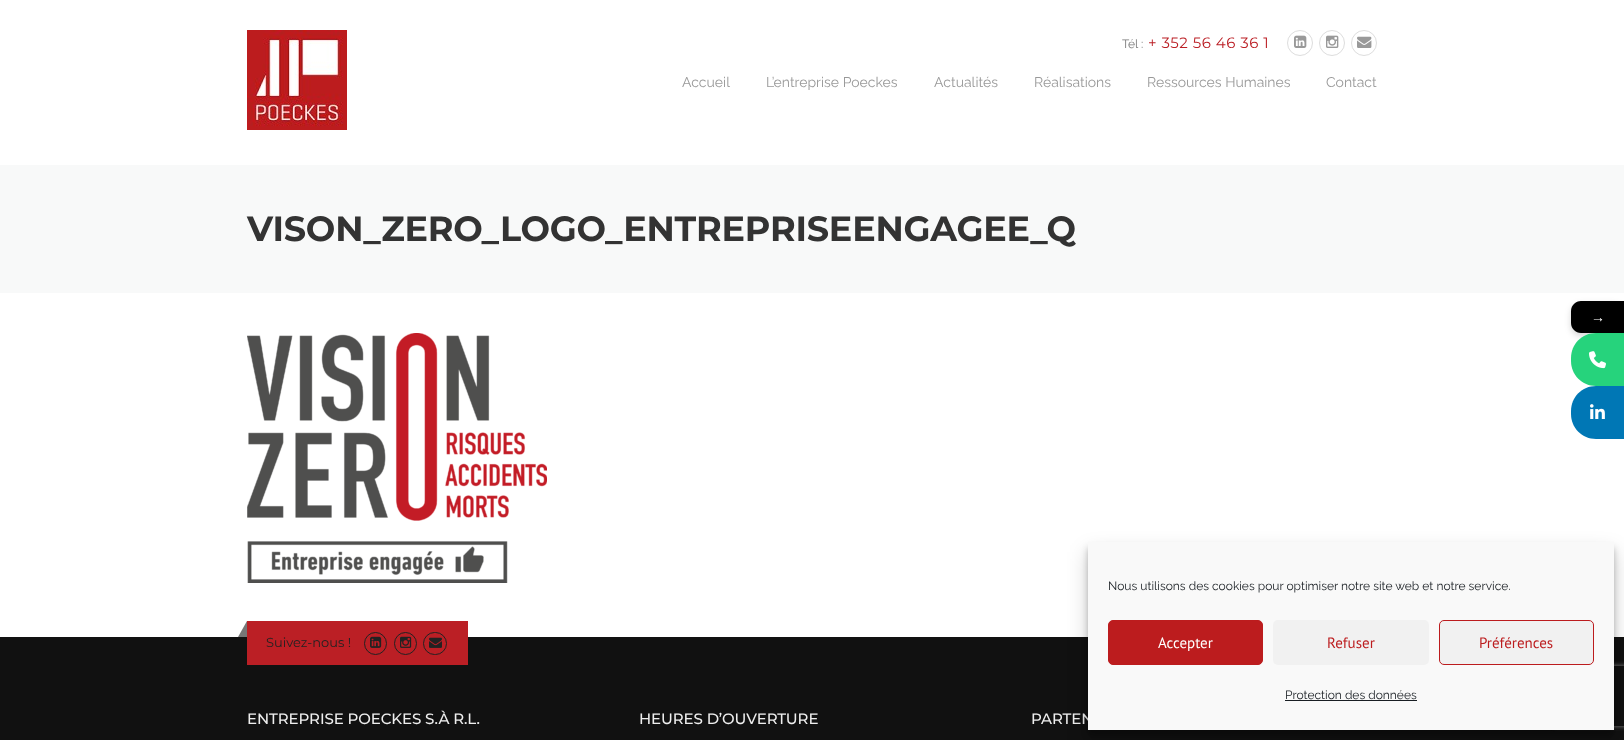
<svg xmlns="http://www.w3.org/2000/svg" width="1624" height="740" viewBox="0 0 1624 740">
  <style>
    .t1 { font: 12px Raleway; fill: #777; }
    .t2 { font: 15px Montserrat; letter-spacing: 0.5px; fill: #bb1f25; }
    .t3 { font: 14px Raleway; fill: #999; }
    .t4 { font: bold 35px Montserrat; letter-spacing: -0.2px; fill: #333; }
    .t5 { font: 14px Liberation Serif; fill: #fff; }
    .t6 { font: 13px Montserrat; fill: #222; }
    .t7 { font: 500 15px Montserrat; letter-spacing: -0.1px; fill: #eee; }
    .t8 { font: 12px Raleway; fill: #191e23; }
    .t9 { font: 15px PT Sans; fill: #fff; }
    .t10 { font: 15px PT Sans; fill: #bc1c1e; }
  </style>
  <defs>
    <clipPath id="clip1"><path d="M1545 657H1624V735H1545ZM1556 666H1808C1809 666 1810 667 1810 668V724C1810 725 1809 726 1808 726H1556C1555 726 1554 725 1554 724V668C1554 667 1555 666 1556 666Z" clip-rule="evenodd"/></clipPath>
  </defs>
  <rect width="100%" height="100%" fill="#fff"/>
  <image x="247" y="30" width="100" height="100" href="images/1.png"/>
  <text x="1122" y="48" class="t1">Tél :</text>
  <text x="1148" y="48" class="t2">+ 352 56 46 36 1</text>
  <circle cx="1300" cy="43" r="12.5" fill="none" stroke="#ddd"/>
  <image x="1294" y="35" width="13" height="13" href="images/2.png"/>
  <circle cx="1332" cy="43" r="12.5" fill="none" stroke="#ddd"/>
  <image x="1326" y="35" width="13" height="13" href="images/3.png"/>
  <circle cx="1364" cy="43" r="12.5" fill="none" stroke="#ddd"/>
  <image x="1357" y="36" width="15" height="12" href="images/4.png"/>
  <text x="682" y="87" class="t3">Accueil</text>
  <text x="766" y="87" class="t3">L’entreprise Poeckes</text>
  <text x="934" y="87" class="t3">Actualités</text>
  <text x="1034" y="87" class="t3">Réalisations</text>
  <text x="1147" y="87" class="t3">Ressources Humaines</text>
  <text x="1326" y="87" class="t3">Contact</text>
  <rect x="0" y="165" width="1624" height="128" fill="#f8f9f9"/>
  <text x="247" y="241" class="t4">VISON_ZERO_LOGO_ENTREPRISEENGAGEE_Q</text>
  <image x="247" y="333" width="300" height="250" href="images/5.png"/>
  <rect x="1571" y="304" width="53" height="32" rx="10" fill="#00000029" filter="blur(3px)"/>
  <path d="M1581 301H1624V333H1581C1575.5 333 1571 328.5 1571 323V311C1571 305.5 1575.5 301 1581 301Z" fill="#000"/>
  <text x="1591" y="322" class="t5">→</text>
  <path d="M1596 333H1624V386H1596C1582 386 1571 375 1571 361V358C1571 344 1582 333 1596 333Z" fill="#26d37c"/>
  <image x="1589" y="351" width="17" height="18" href="images/6.png"/>
  <path d="M1596 386H1624V439H1596C1582 439 1571 428 1571 414V411C1571 397 1582 386 1596 386Z" fill="#0077b5"/>
  <image x="1590" y="404" width="15" height="15" href="images/7.png"/>
  <rect x="0" y="637" width="1624" height="103" fill="#111"/>
  <rect x="247" y="621" width="221" height="44" fill="#bb1f25"/>
  <path d="M247 621V637H238Z" fill="#777"/>
  <text x="266" y="647" class="t6">Suivez-nous !</text>
  <circle cx="375.5" cy="643.5" r="11" fill="none" stroke="#222"/>
  <image x="370" y="636" width="12" height="12" href="images/8.png"/>
  <circle cx="405.5" cy="643.5" r="11" fill="none" stroke="#222"/>
  <image x="400" y="636" width="12" height="12" href="images/9.png"/>
  <rect x="423.5" y="632.5" width="23" height="22" rx="11" fill="none" stroke="#222"/>
  <image x="429" y="637" width="13" height="11" href="images/10.png"/>
  <text x="247" y="724" class="t7">ENTREPRISE POECKES S.À R.L.</text>
  <text x="639" y="724" class="t7">HEURES D’OUVERTURE</text>
  <text x="1031" y="724" class="t7">PARTEN</text>
  <rect x="1088" y="548" width="526" height="188" fill="#0000003b" filter="blur(3px)"/>
  <rect x="1088" y="552" width="526" height="188" fill="#00000030" filter="blur(10px)"/>
  <g clip-path="url(#clip1)">
    <rect x="1554" y="666" width="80" height="60" rx="2" fill="#808080" filter="blur(2.5px)"/>
  </g>
  <rect x="1088" y="542" width="526" height="188" fill="#f9f9f9"/>
  <text x="1108" y="590" class="t8">Nous utilisons des cookies pour optimiser notre site web et notre service.</text>
  <rect x="1108.5" y="620.5" width="154" height="44" rx="4.5" fill="#bc1c1e" stroke="#bc1c1e"/>
  <text x="1158" y="648" class="t9">Accepter</text>
  <rect x="1273" y="620" width="156" height="45" rx="5" fill="#f1f1f1"/>
  <text x="1327" y="648" class="t10">Refuser</text>
  <rect x="1439.5" y="620.5" width="154" height="44" rx="4.5" fill="#f1f1f1" stroke="#bc1c1e"/>
  <text x="1479" y="648" class="t10">Préférences</text>
  <text x="1285" y="699" class="t8">Protection des données</text>
  <rect x="1285" y="700" width="132" height="1" fill="#191e23"/>
</svg>
